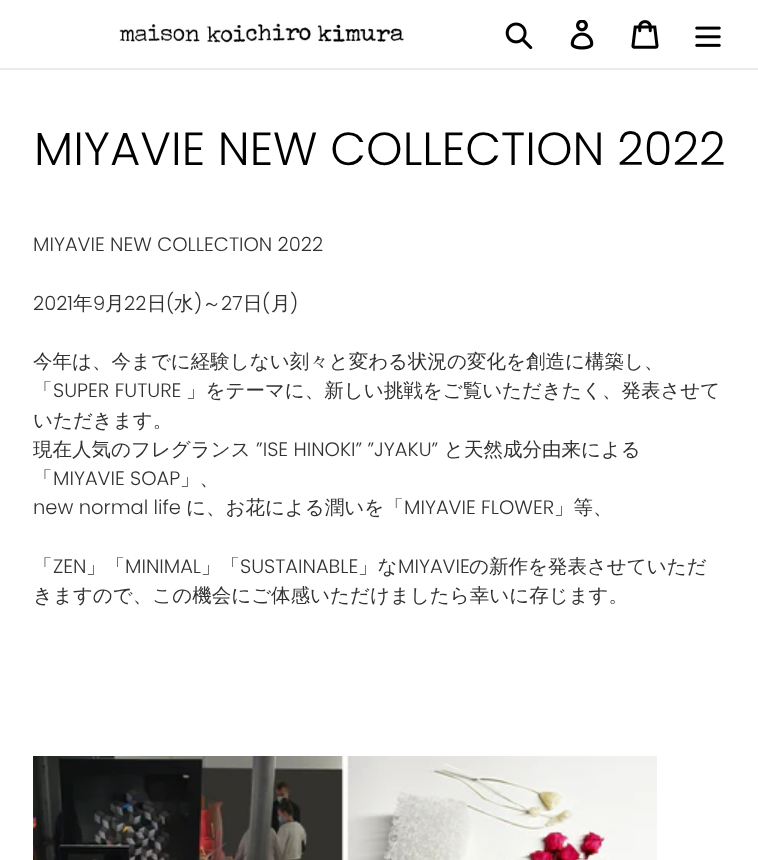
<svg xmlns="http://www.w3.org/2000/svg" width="758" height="860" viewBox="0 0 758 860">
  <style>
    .t1 { font: 300 46.5px Poppins; fill: #000; }
    .t2 { font: 300 19.5px Poppins; fill: #333232; }
    .t3 { font: 500 19.5px WenQuanYi Zen Hei; fill: #333232; }
  </style>
  <rect width="100%" height="100%" fill="#fff"/>
  <rect x="0" y="68" width="758" height="2" fill="#ebebeb"/>
  <image x="119" y="23" width="287" height="20" href="images/1.png"/>
  <image x="505" y="22" width="28" height="28" href="images/2.png"/>
  <image x="570" y="20" width="24" height="30" href="images/3.png"/>
  <image x="631" y="20" width="28" height="29" href="images/4.png"/>
  <image x="695" y="26" width="26" height="21" href="images/5.png"/>
  <text x="34" y="165" class="t1">MIYAVIE NEW COLLECTION 2022</text>
  <text x="33" y="251" class="t2">MIYAVIE NEW COLLECTION 2022</text>
  <text x="33" y="310" class="t2">2021</text>
  <text x="73" y="310" class="t3">年</text>
  <text x="93" y="310" class="t2">9</text>
  <text x="105" y="310" class="t3">月</text>
  <text x="124" y="310" class="t2">22</text>
  <text x="147" y="310" class="t3">日</text>
  <text x="166" y="310" class="t2">(</text>
  <text x="174" y="310" class="t3">水</text>
  <text x="194" y="310" class="t2">)</text>
  <text x="202" y="310" class="t3">～</text>
  <text x="221" y="310" class="t2">27</text>
  <text x="243" y="310" class="t3">日</text>
  <text x="262" y="310" class="t2">(</text>
  <text x="271" y="310" class="t3">月</text>
  <text x="290" y="310" class="t2">)</text>
  <text x="33" y="368" class="t3">今年は、今までに経験しない刻々と変わる状況の変化を創造に構築し、</text>
  <text x="33" y="397" class="t3">「</text>
  <text x="53" y="397" class="t2">SUPER FUTURE</text>
  <text x="186" y="397" class="t3">」をテーマに、新しい挑戦をご覧いただきたく、発表させて</text>
  <text x="33" y="427" class="t3">いただきます。</text>
  <text x="33" y="456" class="t3">現在人気のフレグランス</text>
  <text x="256" y="456" class="t2">”ISE HINOKI” ”JYAKU”</text>
  <text x="444" y="456" class="t3">と天然成分由来による</text>
  <text x="33" y="485" class="t3">「</text>
  <text x="53" y="485" class="t2">MIYAVIE SOAP</text>
  <text x="180" y="485" class="t3">」、</text>
  <text x="33" y="514" class="t2">new normal life</text>
  <text x="186" y="514" class="t3">に、お花による潤いを「</text>
  <text x="404" y="514" class="t2">MIYAVIE FLOWER</text>
  <text x="554" y="514" class="t3">」等、</text>
  <text x="33" y="573" class="t3">「</text>
  <text x="53" y="573" class="t2">ZEN</text>
  <text x="86" y="573" class="t3">」「</text>
  <text x="125" y="573" class="t2">MINIMAL</text>
  <text x="201" y="573" class="t3">」「</text>
  <text x="240" y="573" class="t2">SUSTAINABLE</text>
  <text x="358" y="573" class="t3">」な</text>
  <text x="398" y="573" class="t2">MIYAVIE</text>
  <text x="469" y="573" class="t3">の新作を発表させていただ</text>
  <text x="33" y="602" class="t3">きますので、この機会にご体感いただけましたら幸いに存じます。</text>
  <image x="33" y="756" width="624" height="104" href="images/6.png"/>
</svg>
